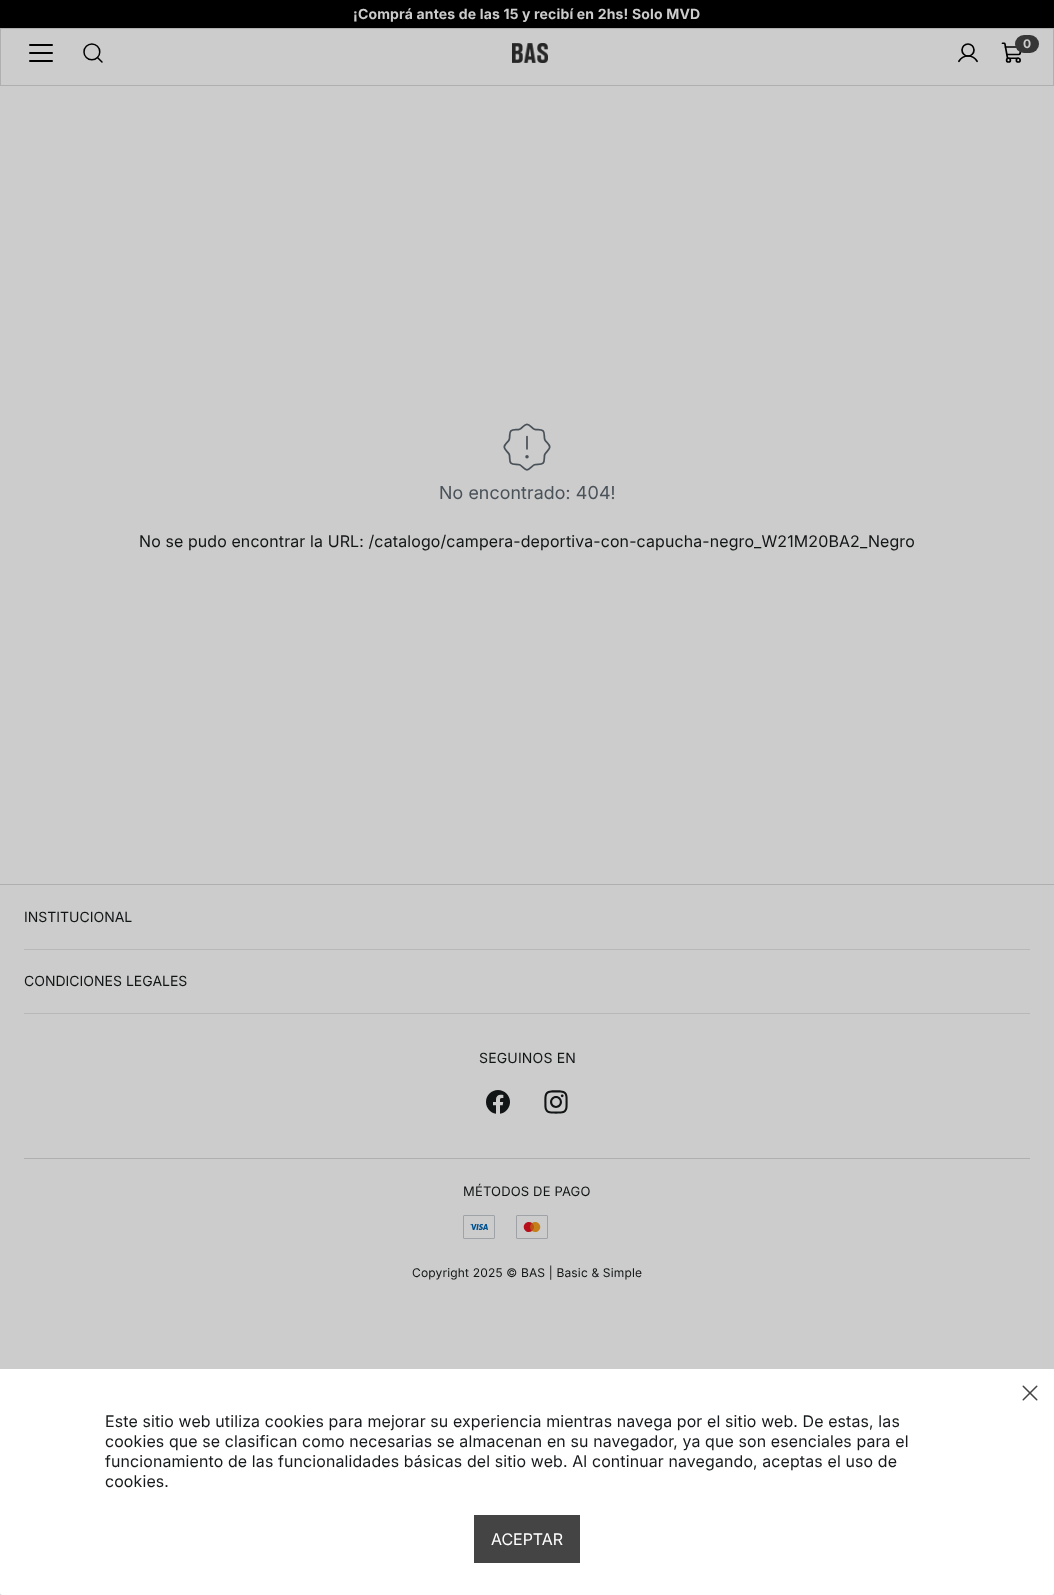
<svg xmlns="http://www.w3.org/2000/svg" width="1054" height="1595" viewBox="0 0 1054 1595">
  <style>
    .t1 { font: bold 14px Inter; letter-spacing: 0.16px; fill: #ccc; }
    .t2 { font: bold 12px Inter; fill: #ccc; }
    .t3 { font: 18px Inter; letter-spacing: 0.16px; fill: #4a5259; }
    .t4 { font: 16px 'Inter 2'; letter-spacing: 0.16px; fill: #121516; }
    .t5 { font: 14px 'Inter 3'; fill: #121516; }
    .t6 { font: 14px 'Inter 3'; letter-spacing: 0.16px; fill: #121516; }
    .t7 { font: 13px 'Inter 3'; letter-spacing: 0.16px; fill: #121516; }
    .t8 { font: 12px 'Inter 3'; letter-spacing: 0.16px; fill: #121516; }
    .t9 { font: 16px 'Inter 2'; letter-spacing: 0.16px; fill: #171a1c; }
    .t10 { font: 16px 'Inter 2'; fill: #fff; }
  </style>
  <rect width="100%" height="100%" fill="#ccc"/>
  <rect x="0" y="0" width="1054" height="28" fill="#000"/>
  <text x="353" y="19" class="t1">¡Comprá antes de las 15 y recibí en 2hs! Solo MVD</text>
  <rect x="0.5" y="28.5" width="1053" height="57" fill="none" stroke="#afafaf"/>
  <image x="29" y="44" width="24" height="18" href="images/1.png"/>
  <image x="83" y="43" width="20" height="20" href="images/2.png"/>
  <image x="512" y="43" width="36" height="20" href="images/3.png"/>
  <image x="958" y="43" width="20" height="20" href="images/4.png"/>
  <image x="1001" y="42" width="21" height="21" href="images/5.png"/>
  <rect x="1015" y="35" width="24" height="18" rx="9" fill="#363636"/>
  <text x="1023" y="48" class="t2">0</text>
  <image x="503" y="423" width="48" height="48" href="images/6.png"/>
  <text x="439" y="499" class="t3">No encontrado: 404!</text>
  <text x="139" y="547" class="t4">No se pudo encontrar la URL: /catalogo/campera-deportiva-con-capucha-negro_W21M20BA2_Negro</text>
  <rect x="0" y="884" width="1054" height="1" fill="#afafaf"/>
  <rect x="24" y="949" width="1006" height="1" fill="#b6b8ba"/>
  <text x="24" y="922" class="t5">INSTITUCIONAL</text>
  <rect x="24" y="1013" width="1006" height="1" fill="#b6b8ba"/>
  <text x="24" y="986" class="t5">CONDICIONES LEGALES</text>
  <text x="479" y="1063" class="t6">SEGUINOS EN</text>
  <image x="486" y="1090" width="24" height="24" href="images/7.png"/>
  <image x="544" y="1090" width="24" height="24" href="images/8.png"/>
  <rect x="24" y="1158" width="1006" height="1" fill="#afafaf"/>
  <text x="463" y="1196" class="t7">MÉTODOS DE PAGO</text>
  <rect x="463.5" y="1215.5" width="31" height="23" rx="0.5" fill="none" stroke="#9fa3a7"/>
  <image x="470" y="1224" width="18" height="6" href="images/9.png"/>
  <rect x="516.5" y="1215.5" width="31" height="23" rx="0.5" fill="none" stroke="#9fa3a7"/>
  <image x="523" y="1222" width="18" height="10" href="images/10.png"/>
  <text x="412" y="1277" class="t8">Copyright 2025 © BAS | Basic &amp; Simple</text>
  <rect x="0" y="1369" width="1054" height="226" rx="2" fill="#fff"/>
  <rect x="0" y="1369" width="1054" height="2" fill="#fff"/>
  <image x="1022" y="1385" width="16" height="16" href="images/11.png"/>
  <text x="105" y="1427" class="t9">Este sitio web utiliza cookies para mejorar su experiencia mientras navega por el sitio web. De estas, las</text>
  <text x="105" y="1447" class="t9">cookies que se clasifican como necesarias se almacenan en su navegador, ya que son esenciales para el</text>
  <text x="105" y="1467" class="t9">funcionamiento de las funcionalidades básicas del sitio web. Al continuar navegando, aceptas el uso de</text>
  <text x="105" y="1487" class="t9">cookies.</text>
  <rect x="474" y="1515" width="106" height="48" fill="#444"/>
  <text x="491" y="1545" class="t10">ACEPTAR</text>
</svg>
